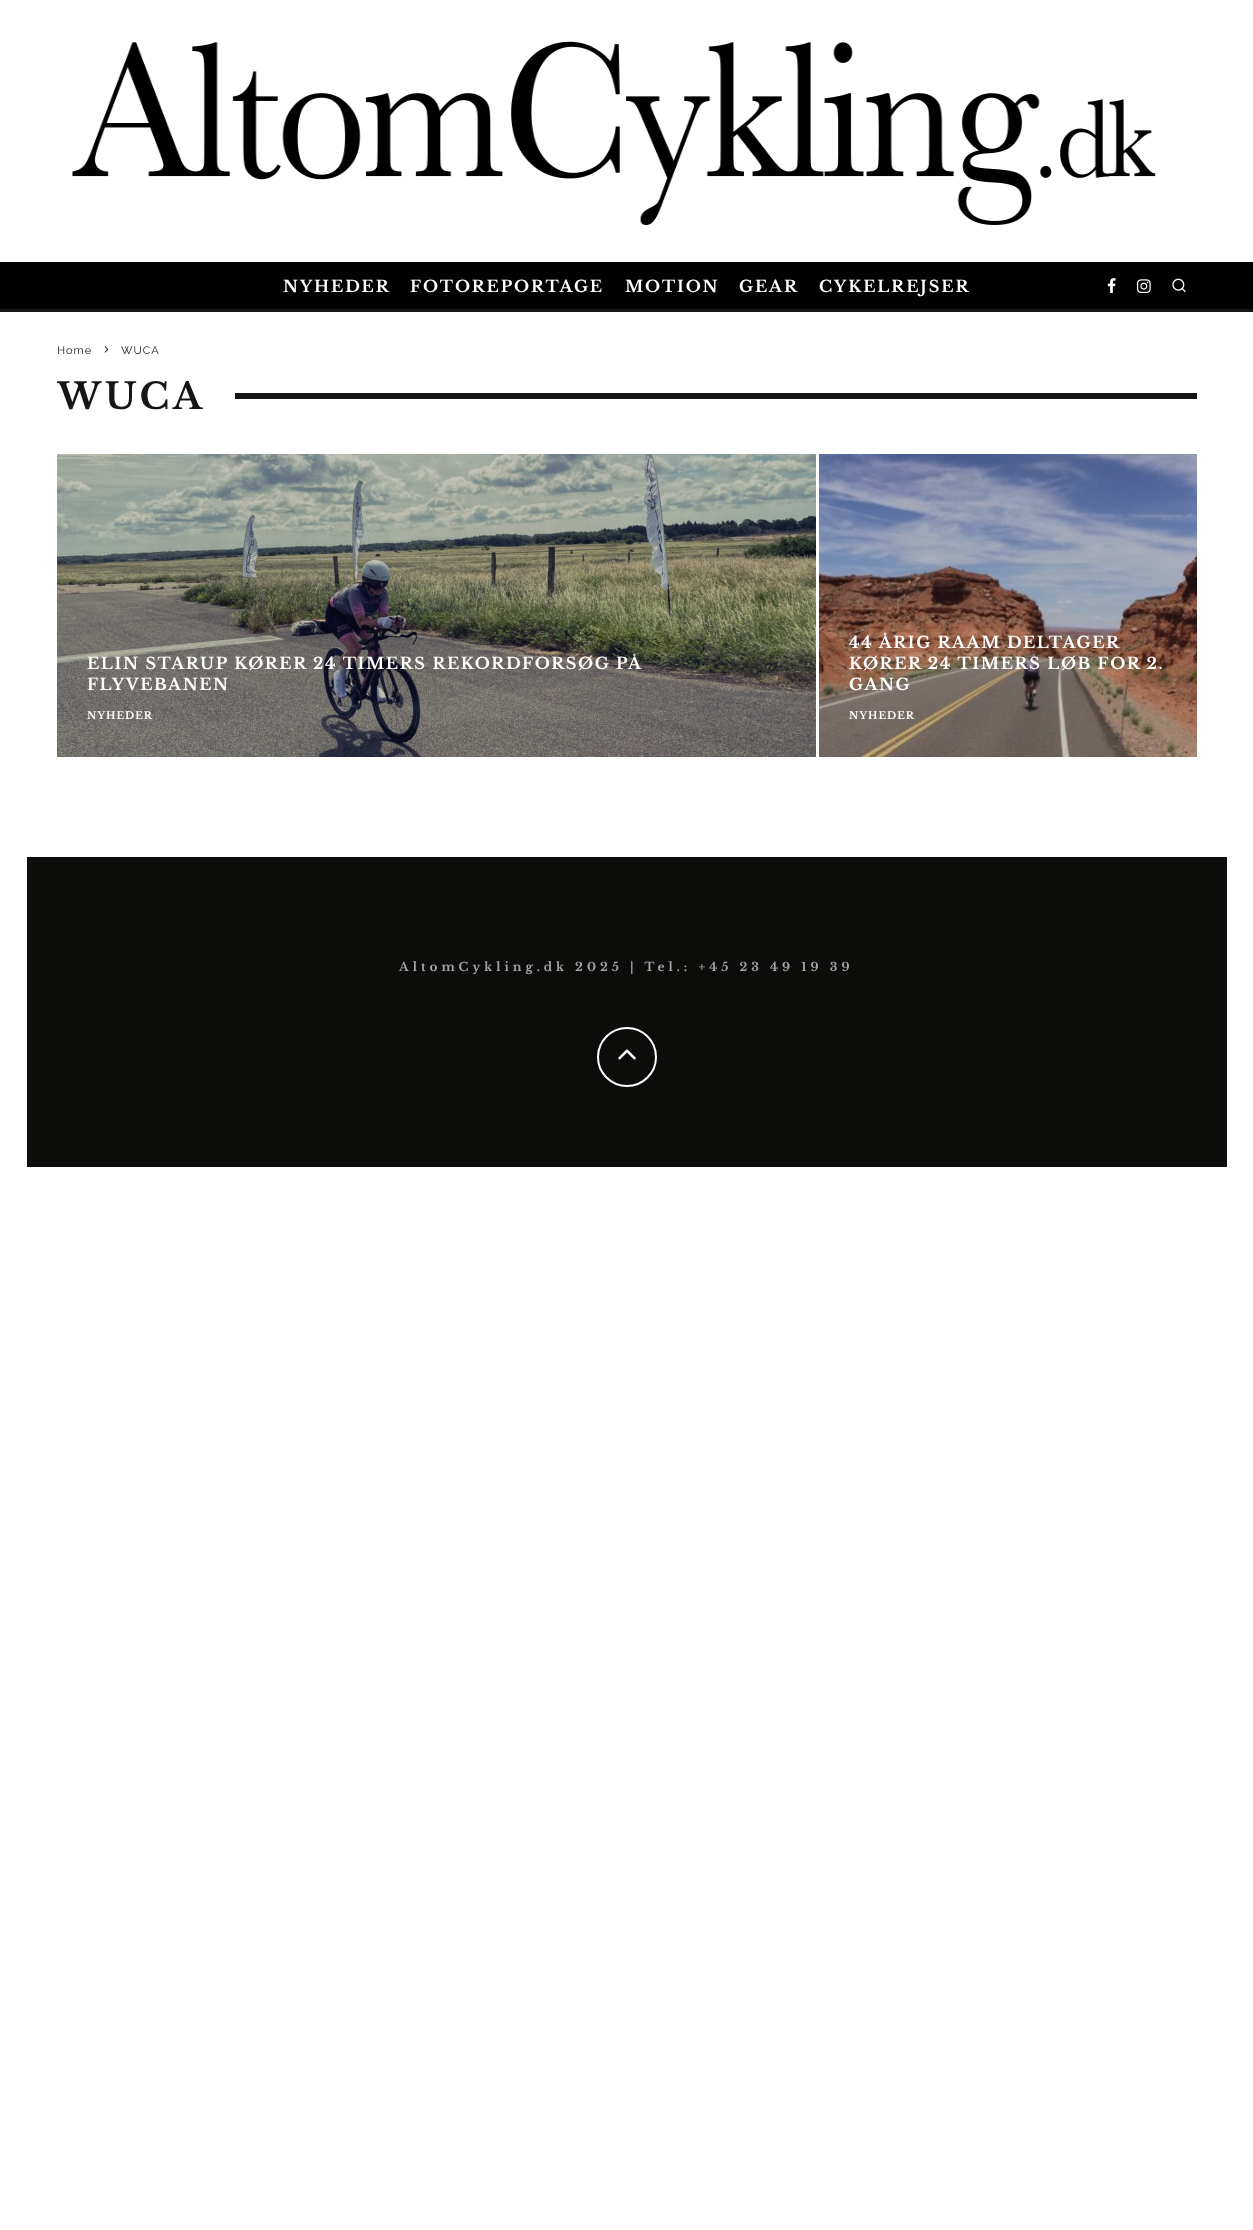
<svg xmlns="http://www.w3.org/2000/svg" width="1253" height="2230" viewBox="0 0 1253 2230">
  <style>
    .t1 { font: bold 16px Libre Baskerville; letter-spacing: 1.9px; fill: #fff; }
    .t2 { font: 11px Raleway; letter-spacing: 1px; fill: #161616; }
    .t3 { font: bold 36px Libre Baskerville; letter-spacing: 3.5px; fill: #161616; }
    .t4 { font: bold 16px Libre Baskerville; letter-spacing: 1.6px; fill: #fff; }
    .t5 { font: bold 10px Libre Baskerville; letter-spacing: 1px; fill: #fff; }
    .t6 { font: bold 12px Libre Baskerville; letter-spacing: 4px; fill: #a6a6a6; }
  </style>
  <defs>
    <clipPath id="clip1"><rect x="57" y="375" width="1140" height="43"/></clipPath>
  </defs>
  <rect width="100%" height="100%" fill="#fff"/>
  <image x="72" y="41" width="1084" height="184" href="images/1.png"/>
  <rect x="0" y="262" width="1253" height="47" fill="#010101"/>
  <rect x="0" y="309" width="1253" height="3" fill="#161616"/>
  <text x="283" y="292" class="t1">NYHEDER</text>
  <text x="410" y="292" class="t1">FOTOREPORTAGE</text>
  <text x="625" y="292" class="t1">MOTION</text>
  <text x="739" y="292" class="t1">GEAR</text>
  <text x="819" y="292" class="t1">CYKELREJSER</text>
  <image x="1107" y="278" width="9" height="15" href="images/2.png"/>
  <image x="1137" y="279" width="14" height="14" href="images/3.png"/>
  <image x="1172" y="278" width="14" height="14" href="images/4.png"/>
  <text x="57" y="354" class="t2">Home</text>
  <image x="104" y="346" width="5" height="7" href="images/5.png"/>
  <text x="121" y="354" class="t2">WUCA</text>
  <g clip-path="url(#clip1)">
    <text x="57" y="409" class="t3">WUCA</text>
  </g>
  <rect x="235" y="393" width="962" height="6" fill="#161616"/>
  <image x="57" y="454" width="759" height="303" href="images/6.png"/>
  <text x="87" y="669" class="t4">ELIN STARUP KØRER 24 TIMERS REKORDFORSØG PÅ</text>
  <text x="87" y="690" class="t4">FLYVEBANEN</text>
  <text x="87" y="719" class="t5">NYHEDER</text>
  <image x="819" y="454" width="378" height="303" href="images/7.png"/>
  <text x="849" y="648" class="t4">44 ÅRIG RAAM DELTAGER</text>
  <text x="849" y="669" class="t4">KØRER 24 TIMERS LØB FOR 2.</text>
  <text x="849" y="690" class="t4">GANG</text>
  <text x="849" y="719" class="t5">NYHEDER</text>
  <rect x="27" y="857" width="1200" height="310" fill="#0c0c0b"/>
  <text x="399" y="971" class="t6">AltomCykling.dk 2025 | Tel.: +45 23 49 19 39</text>
  <circle cx="627" cy="1057" r="29" fill="none" stroke="#fff" stroke-width="2"/>
  <image x="618" y="1049" width="18" height="11" href="images/8.png"/>
</svg>
